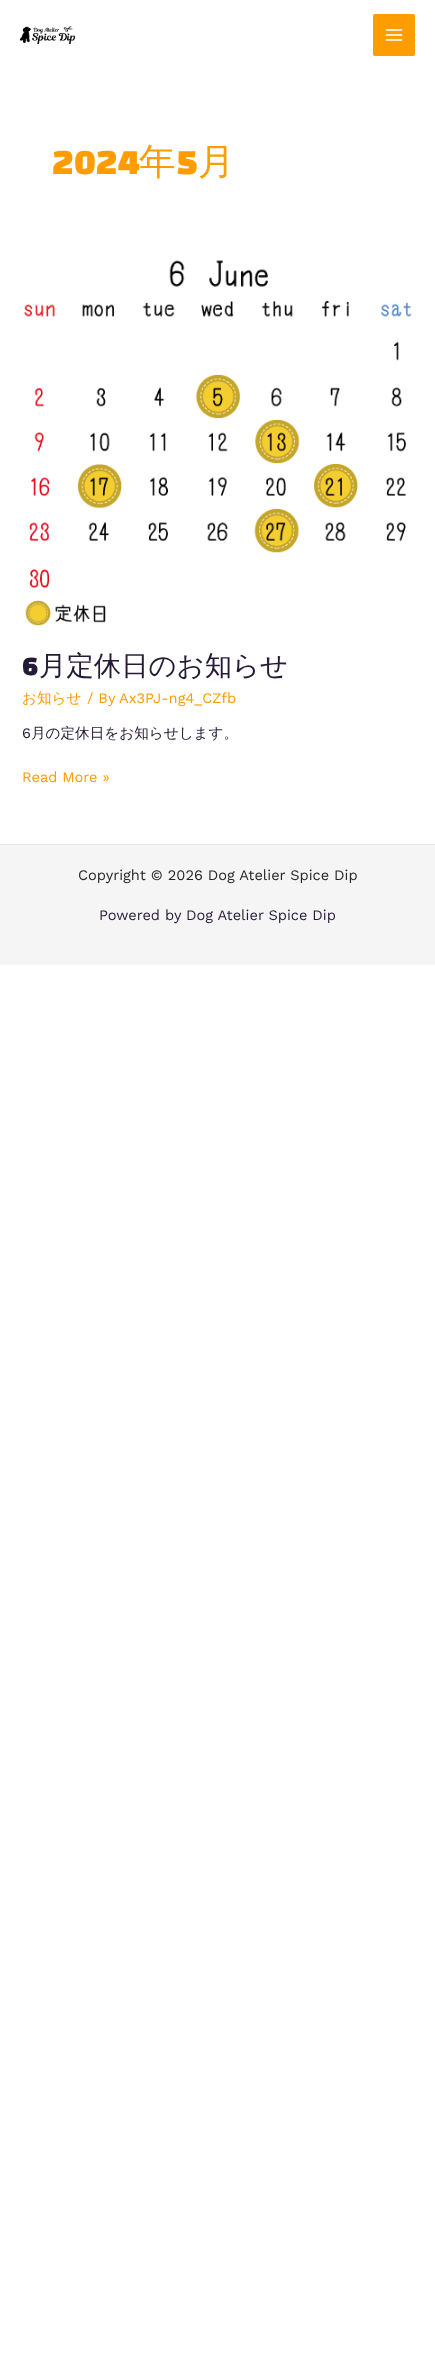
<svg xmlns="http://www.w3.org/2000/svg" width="435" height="2369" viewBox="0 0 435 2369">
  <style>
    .t1 { font: 36.5px Changa One; fill: #ff9c00; }
    .t2 { font: 500 36.5px WenQuanYi Zen Hei; fill: #ff9c00; }
    .t3 { font: 27.4px Changa One; fill: #261a36; }
    .t4 { font: 500 27.4px WenQuanYi Zen Hei; fill: #261a36; }
    .t5 { font: 500 14.6px WenQuanYi Zen Hei; fill: #ff9c00; }
    .t6 { font: 14.6px Work Sans; fill: #ff9c00; }
    .t7 { font: 14.6px Work Sans; fill: #261a36; }
    .t8 { font: 500 14.6px WenQuanYi Zen Hei; fill: #261a36; }
    .t9 { font: 14.6px Work Sans; fill: #292524; }
  </style>
  <rect width="100%" height="100%" fill="#fff"/>
  <image x="20" y="26" width="55" height="18" href="images/1.png"/>
  <rect x="373" y="14" width="42" height="42" rx="2" fill="#ff9c00"/>
  <image x="385" y="29" width="18" height="12" href="images/2.png"/>
  <text x="52" y="174" class="t1">2024</text>
  <text x="139" y="174" class="t2">年</text>
  <text x="176" y="174" class="t1">5</text>
  <text x="198" y="174" class="t2">月</text>
  <image x="24" y="260" width="388" height="366" href="images/3.png"/>
  <text x="22" y="675" class="t3">6</text>
  <text x="39" y="675" class="t4">月定休日のお知らせ</text>
  <text x="22" y="703" class="t5">お知らせ</text>
  <text x="87" y="703" class="t6">/ By</text>
  <text x="119" y="703" class="t6">Ax3PJ-ng4_CZfb</text>
  <text x="22" y="738" class="t7">6</text>
  <text x="31" y="738" class="t8">月の定休日をお知らせします。</text>
  <text x="22" y="782" class="t6">Read More »</text>
  <rect x="0" y="845" width="435" height="120" fill="#f5f5f6"/>
  <rect x="0" y="844" width="435" height="1" fill="#e5e5e5"/>
  <text x="78" y="880" class="t9">Copyright © 2026 Dog Atelier Spice Dip</text>
  <text x="99" y="920" class="t7">Powered by Dog Atelier Spice Dip</text>
</svg>
